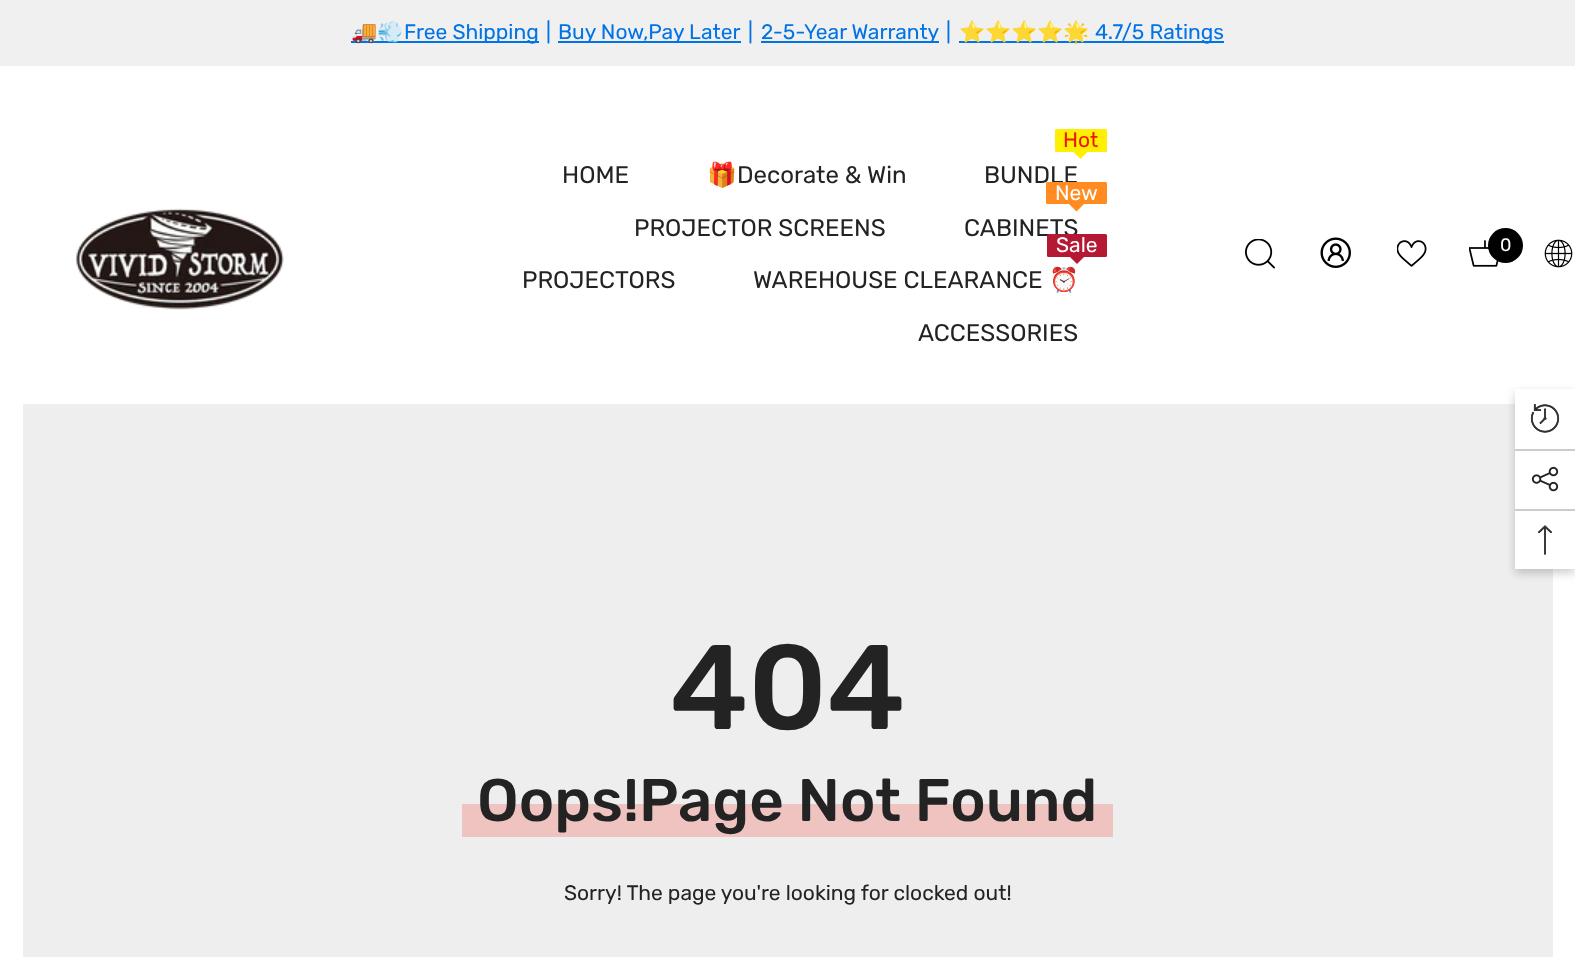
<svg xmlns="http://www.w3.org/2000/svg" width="1575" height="957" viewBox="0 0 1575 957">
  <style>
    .t1 { font: 21px Noto Color Emoji; fill: #0073e6; }
    .t2 { font: 21px Rubik; fill: #0073e6; }
    .t3 { font: 24px Rubik; fill: #232323; }
    .t4 { font: 24px Noto Color Emoji; fill: #232323; }
    .t5 { font: 21px Rubik; fill: #ea1809; }
    .t6 { font: 21px Rubik; fill: #fff; }
    .t7 { font: 18px Rubik; fill: #fff; }
    .t8 { font: 500 120px Rubik; fill: #232323; }
    .t9 { font: 500 60px Rubik; fill: #232323; }
    .t10 { font: 21px Rubik; fill: #232323; }
  </style>
  <rect width="100%" height="100%" fill="#fff"/>
  <rect x="0" y="0" width="1575" height="66" fill="#f0f0f0"/>
  <rect x="351" y="41" width="188" height="2" fill="#0073e6"/>
  <text x="351" y="39" class="t1">🚚💨</text>
  <text x="404" y="39" class="t2">Free Shipping</text>
  <text x="546" y="39" class="t2">|</text>
  <rect x="558" y="41" width="183" height="2" fill="#0073e6"/>
  <text x="558" y="39" class="t2">Buy Now,Pay Later</text>
  <text x="748" y="39" class="t2">|</text>
  <rect x="761" y="41" width="178" height="2" fill="#0073e6"/>
  <text x="761" y="39" class="t2">2-5-Year Warranty</text>
  <text x="946" y="39" class="t2">|</text>
  <rect x="959" y="41" width="265" height="2" fill="#0073e6"/>
  <text x="959" y="39" class="t1">⭐⭐⭐⭐🌟</text>
  <text x="1095" y="39" class="t2">4.7/5 Ratings</text>
  <image x="76" y="208" width="208" height="102" href="images/1.png"/>
  <text x="562" y="183" class="t3">HOME</text>
  <text x="707" y="183" class="t4">🎁</text>
  <text x="737" y="183" class="t3">Decorate &amp; Win</text>
  <rect x="1055" y="129" width="52" height="23" rx="1.5" fill="#fff003"/>
  <text x="1063" y="147" class="t5">Hot</text>
  <path d="M1073 151.5H1088L1080.5 159Z" fill="#fff003"/>
  <text x="984" y="183" class="t3">BUNDLE</text>
  <text x="634" y="236" class="t3">PROJECTOR SCREENS</text>
  <rect x="1046" y="182" width="61" height="22" rx="1.5" fill="#ff8b21"/>
  <text x="1055" y="200" class="t6">New</text>
  <path d="M1069 204H1084L1076.5 211.5Z" fill="#ff8b21"/>
  <text x="964" y="236" class="t3">CABINETS</text>
  <text x="522" y="288" class="t3">PROJECTORS</text>
  <rect x="1047" y="234" width="60" height="23" rx="1.5" fill="#b41833"/>
  <text x="1056" y="252" class="t6">Sale</text>
  <path d="M1069.5 256.5H1084.5L1077 264Z" fill="#b41833"/>
  <text x="753" y="288" class="t3">WAREHOUSE CLEARANCE</text>
  <text x="1049" y="288" class="t4">⏰</text>
  <text x="918" y="341" class="t3">ACCESSORIES</text>
  <image x="1245" y="239" width="30" height="30" href="images/2.png"/>
  <image x="1320" y="237" width="31" height="31" href="images/3.png"/>
  <image x="1397" y="240" width="30" height="27" href="images/4.png"/>
  <image x="1469" y="240" width="30" height="27" href="images/5.png"/>
  <circle cx="1505.5" cy="245.5" r="17.5" fill="#000"/>
  <text x="1500" y="251" class="t7">0</text>
  <image x="1544" y="239" width="29" height="29" href="images/6.png"/>
  <rect x="23" y="404" width="1530" height="553" fill="#eee"/>
  <text x="670" y="729" class="t8">404</text>
  <rect x="462" y="804" width="651" height="33" fill="#efc3c0"/>
  <text x="477" y="821" class="t9">Oops!Page Not Found</text>
  <text x="564" y="900" class="t10">Sorry! The page you're looking for clocked out!</text>
  <rect x="1515" y="393" width="60" height="180" fill="#00000033" filter="blur(5px)"/>
  <rect x="1515" y="389" width="60" height="180" fill="#fff"/>
  <image x="1530" y="404" width="30" height="29" href="images/7.png"/>
  <rect x="1515" y="449" width="60" height="2" fill="#ccc"/>
  <image x="1531" y="466" width="28" height="26" href="images/8.png"/>
  <rect x="1515" y="509" width="60" height="2" fill="#ccc"/>
  <image x="1538" y="525" width="14" height="30" href="images/9.png"/>
</svg>
